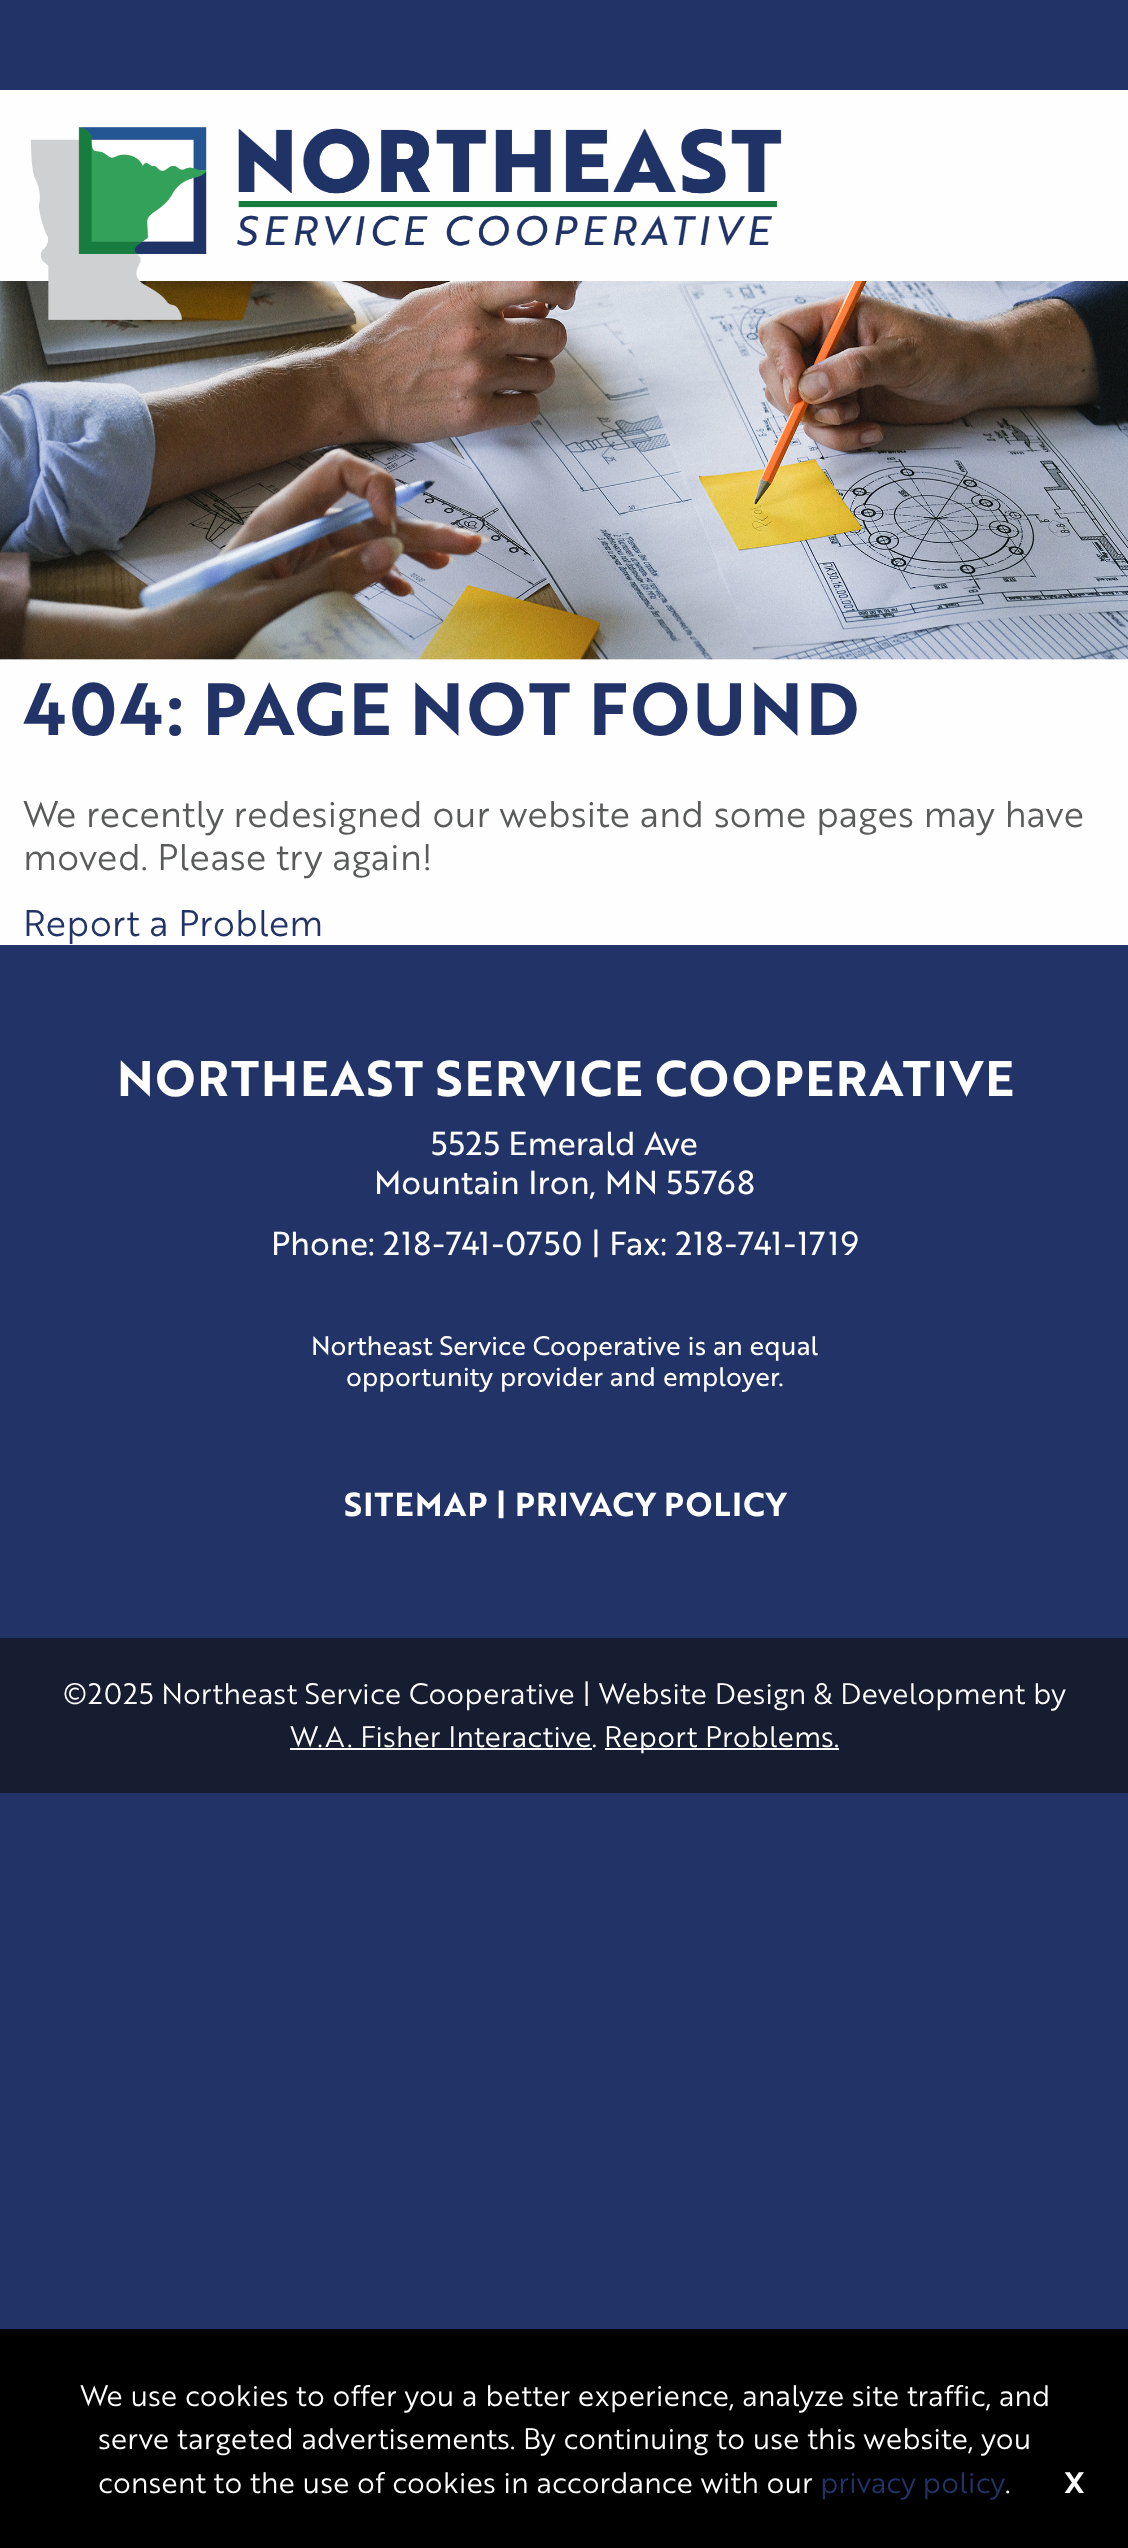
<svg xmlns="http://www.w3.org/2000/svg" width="1128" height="2548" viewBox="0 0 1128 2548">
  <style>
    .t1 { font: bold 72px 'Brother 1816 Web'; fill: #223367; }
    .t2 { font: 36px 'Brother 1816 Web'; fill: #595a5a; }
    .t3 { font: 36px 'Brother 1816 Web'; fill: #223367; }
    .t4 { font: bold 48.6px 'Brother 1816 Web'; fill: #fff; }
    .t5 { font: 32.4px 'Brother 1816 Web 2'; fill: #fff; }
    .t6 { font: 25.9px 'Brother 1816 Web 2'; fill: #fff; }
    .t7 { font: bold 32.4px 'Brother 1816 Web'; fill: #fff; }
    .t8 { font: 28.8px 'Brother 1816 Web'; fill: #fff; }
    .t9 { font: 28.8px 'Brother 1816 Web'; fill: #223367; }
    .t10 { font: bold 28.8px 'Brother 1816 Web'; fill: #fff; }
  </style>
  <rect width="100%" height="100%" fill="#223367"/>
  <rect x="0" y="90" width="1128" height="855" fill="#fefefe"/>
  <image x="0" y="281" width="1128" height="379" href="images/2.png"/>
  <image x="30" y="127" width="752" height="193" href="images/1.png"/>
  <text x="23" y="735" class="t1">404: PAGE NOT FOUND</text>
  <text x="23" y="827" class="t2">We recently redesigned our website and some pages may have</text>
  <text x="23" y="870" class="t2">moved. Please try again!</text>
  <text x="23" y="936" class="t3">Report a Problem</text>
  <text x="117" y="1096" class="t4">NORTHEAST SERVICE COOPERATIVE</text>
  <text x="431" y="1155" class="t5">5525 Emerald Ave</text>
  <text x="374" y="1194" class="t5">Mountain Iron, MN 55768</text>
  <text x="271" y="1255" class="t5">Phone: 218-741-0750 | Fax: 218-741-1719</text>
  <text x="311" y="1355" class="t6">Northeast Service Cooperative is an equal</text>
  <text x="346" y="1386" class="t6">opportunity provider and employer.</text>
  <text x="344" y="1516" class="t7">SITEMAP | PRIVACY POLICY</text>
  <rect x="0" y="1638" width="1128" height="155" fill="#161d30"/>
  <text x="63" y="1704" class="t8">©2025 Northeast Service Cooperative | Website Design &amp; Development by</text>
  <text x="290" y="1747" class="t8">W.A. Fisher Interactive.</text>
  <rect x="290" y="1748" width="302" height="2" fill="#fff"/>
  <rect x="605" y="1748" width="234" height="2" fill="#fff"/>
  <text x="604" y="1747" class="t8">Report Problems.</text>
  <rect x="0" y="2329" width="1128" height="219" fill="#000"/>
  <text x="80" y="2406" class="t8">We use cookies to offer you a better experience, analyze site traffic, and</text>
  <text x="98" y="2449" class="t8">serve targeted advertisements. By continuing to use this website, you</text>
  <text x="98" y="2493" class="t8">consent to the use of cookies in accordance with our</text>
  <text x="820" y="2493" word-spacing="-1" class="t9">privacy policy</text>
  <text x="1005" y="2493" class="t8">.</text>
  <text x="1064" y="2493" class="t10">X</text>
</svg>
